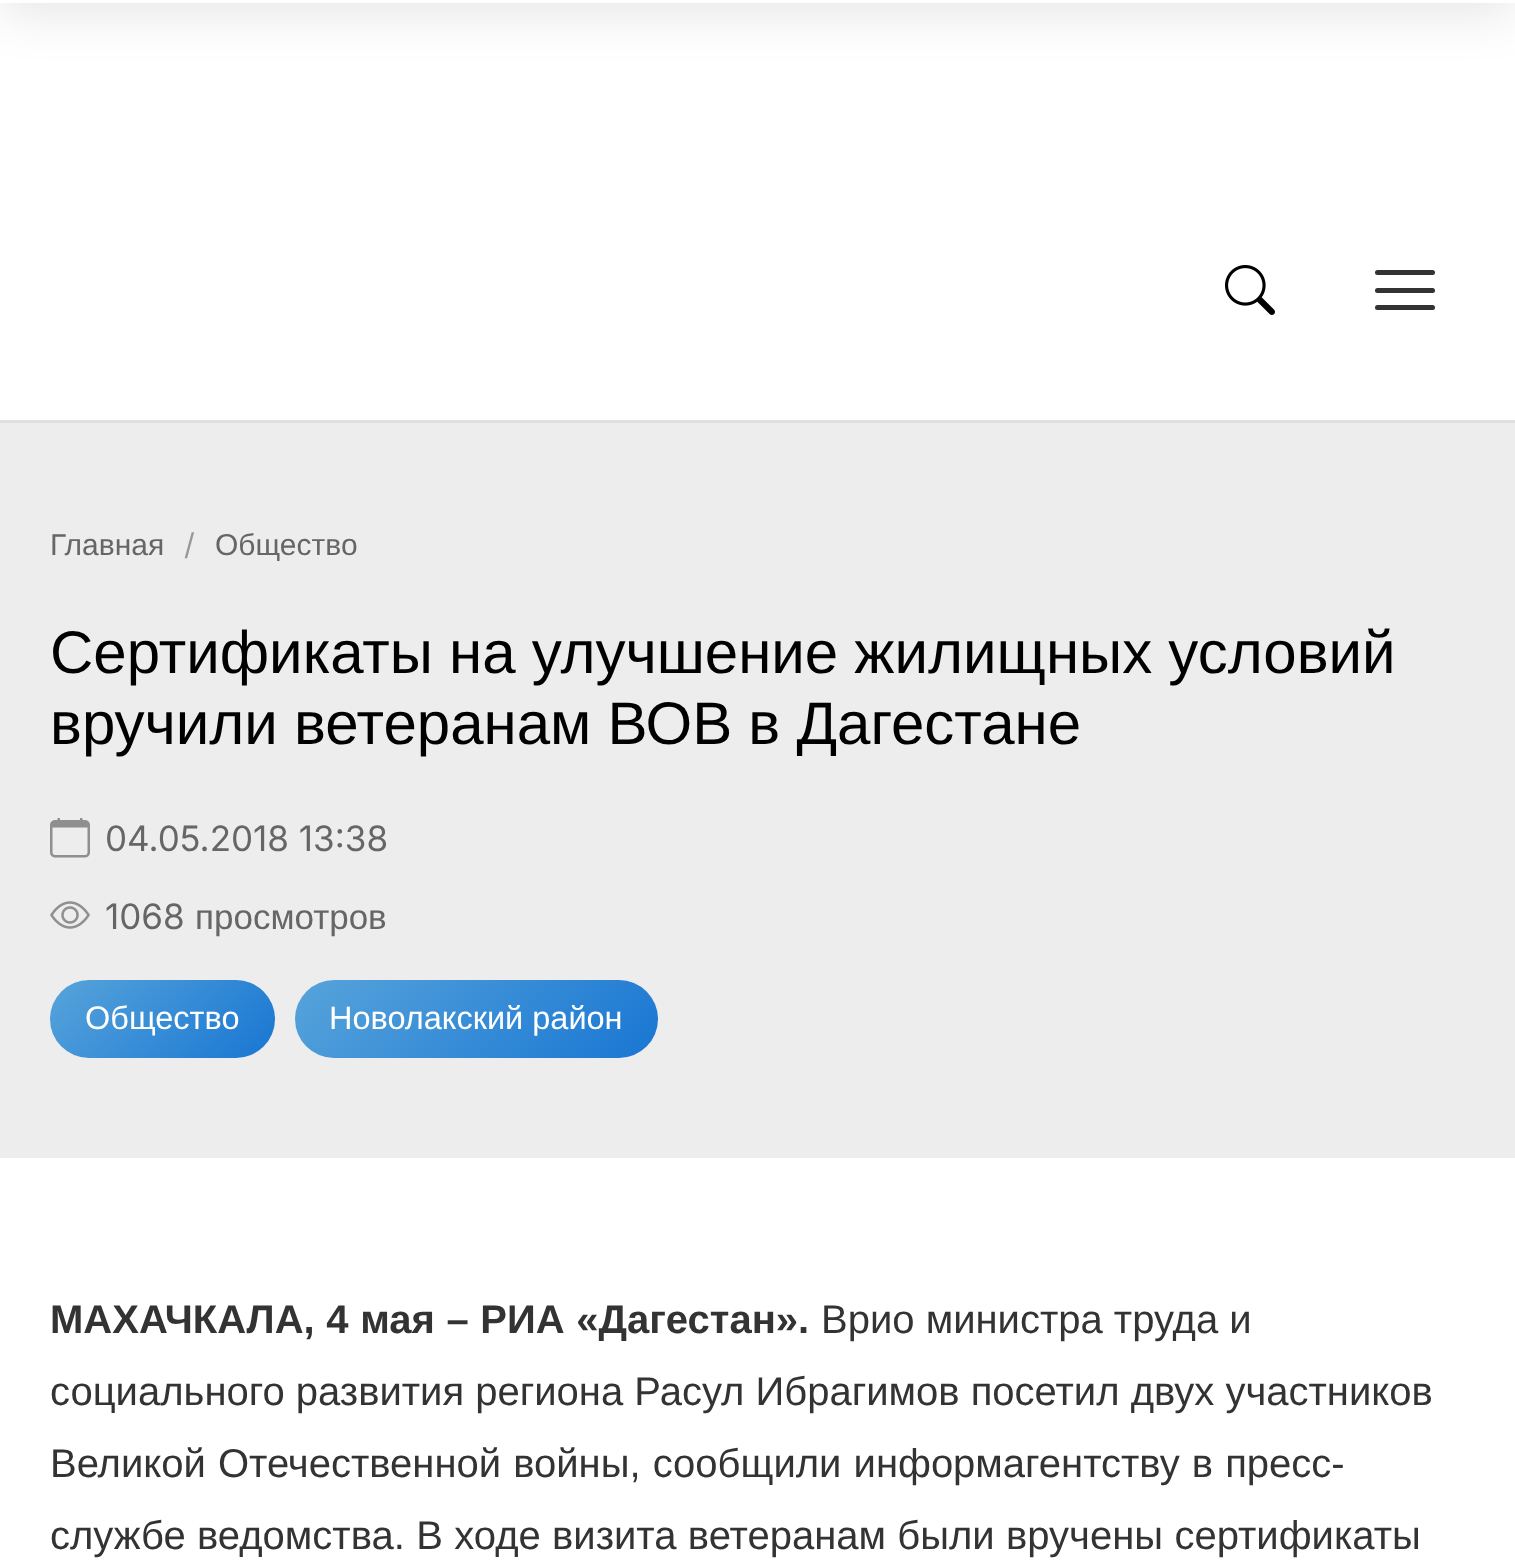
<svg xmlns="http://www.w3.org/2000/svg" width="1515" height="1564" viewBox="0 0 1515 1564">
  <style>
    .t1 { font: 30px Liberation Sans; fill: #666; }
    .t2 { font: 30px Inter; fill: #999; }
    .t3 { font: 60px Liberation Sans; fill: #000; }
    .t4 { font: 35px Inter; fill: #666; }
    .t5 { font: 35px Liberation Sans; fill: #666; }
    .t6 { font: 32.5px Liberation Sans; fill: #fff; }
    .t7 { font: bold 40px Liberation Sans; fill: #333; }
    .t8 { font: 40px Liberation Sans; fill: #333; }
  </style>
  <defs>
    <linearGradient id="g1" gradientUnits="userSpaceOnUse" x1="87" y1="943" x2="238" y2="1094"><stop offset="0" stop-color="#57a4db"/><stop offset="1" stop-color="#1976d2"/></linearGradient>
    <linearGradient id="g2" gradientUnits="userSpaceOnUse" x1="366" y1="909" x2="586" y2="1129"><stop offset="0" stop-color="#57a4db"/><stop offset="1" stop-color="#1976d2"/></linearGradient>
  </defs>
  <rect width="100%" height="100%" fill="#fff"/>
  <rect x="0" y="-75" width="1515" height="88" fill="#0000001a" filter="blur(25px)"/>
  <rect x="0" y="0" width="1515" height="3" fill="#fff"/>
  <rect x="0" y="420" width="1515" height="3" fill="#e0e0e0"/>
  <image x="1225" y="265" width="50" height="50" href="images/1.png"/>
  <rect x="1375" y="270" width="60" height="5" rx="2.5" fill="#333"/>
  <rect x="1375" y="288" width="60" height="5" rx="2.5" fill="#333"/>
  <rect x="1375" y="305" width="60" height="5" rx="2.5" fill="#333"/>
  <rect x="0" y="423" width="1515" height="735" fill="#ededed"/>
  <text x="50" y="555" class="t1">Главная</text>
  <text x="184" y="555" class="t2">/</text>
  <text x="215" y="555" class="t1">Общество</text>
  <text x="50" y="673" word-spacing="-0.5" class="t3">Сертификаты на улучшение жилищных условий</text>
  <text x="50" y="744" word-spacing="-0.5" class="t3">вручили ветеранам ВОВ в Дагестане</text>
  <image x="50" y="818" width="40" height="40" href="images/2.png"/>
  <text x="105" y="851" class="t4">04.05.2018 13:38</text>
  <image x="50" y="901" width="40" height="28" href="images/3.png"/>
  <text x="105" y="929" class="t4">1068</text>
  <text x="195" y="929" class="t5">просмотров</text>
  <rect x="50" y="980" width="225" height="78" rx="39" fill="url(#g1)"/>
  <text x="85" y="1029" class="t6">Общество</text>
  <rect x="295" y="980" width="363" height="78" rx="39" fill="url(#g2)"/>
  <text x="329" y="1029" class="t6">Новолакский район</text>
  <text x="50" y="1333" word-spacing="0.5" class="t7">МАХАЧКАЛА, 4 мая – РИА «Дагестан».</text>
  <text x="821" y="1333" class="t8">Врио министра труда и</text>
  <text x="50" y="1405" class="t8">социального развития региона Расул Ибрагимов посетил двух участников</text>
  <text x="50" y="1477" word-spacing="1" class="t8">Великой Отечественной войны, сообщили информагентству в пресс-</text>
  <text x="50" y="1549" word-spacing="0.25" class="t8">службе ведомства. В ходе визита ветеранам были вручены сертификаты</text>
</svg>
